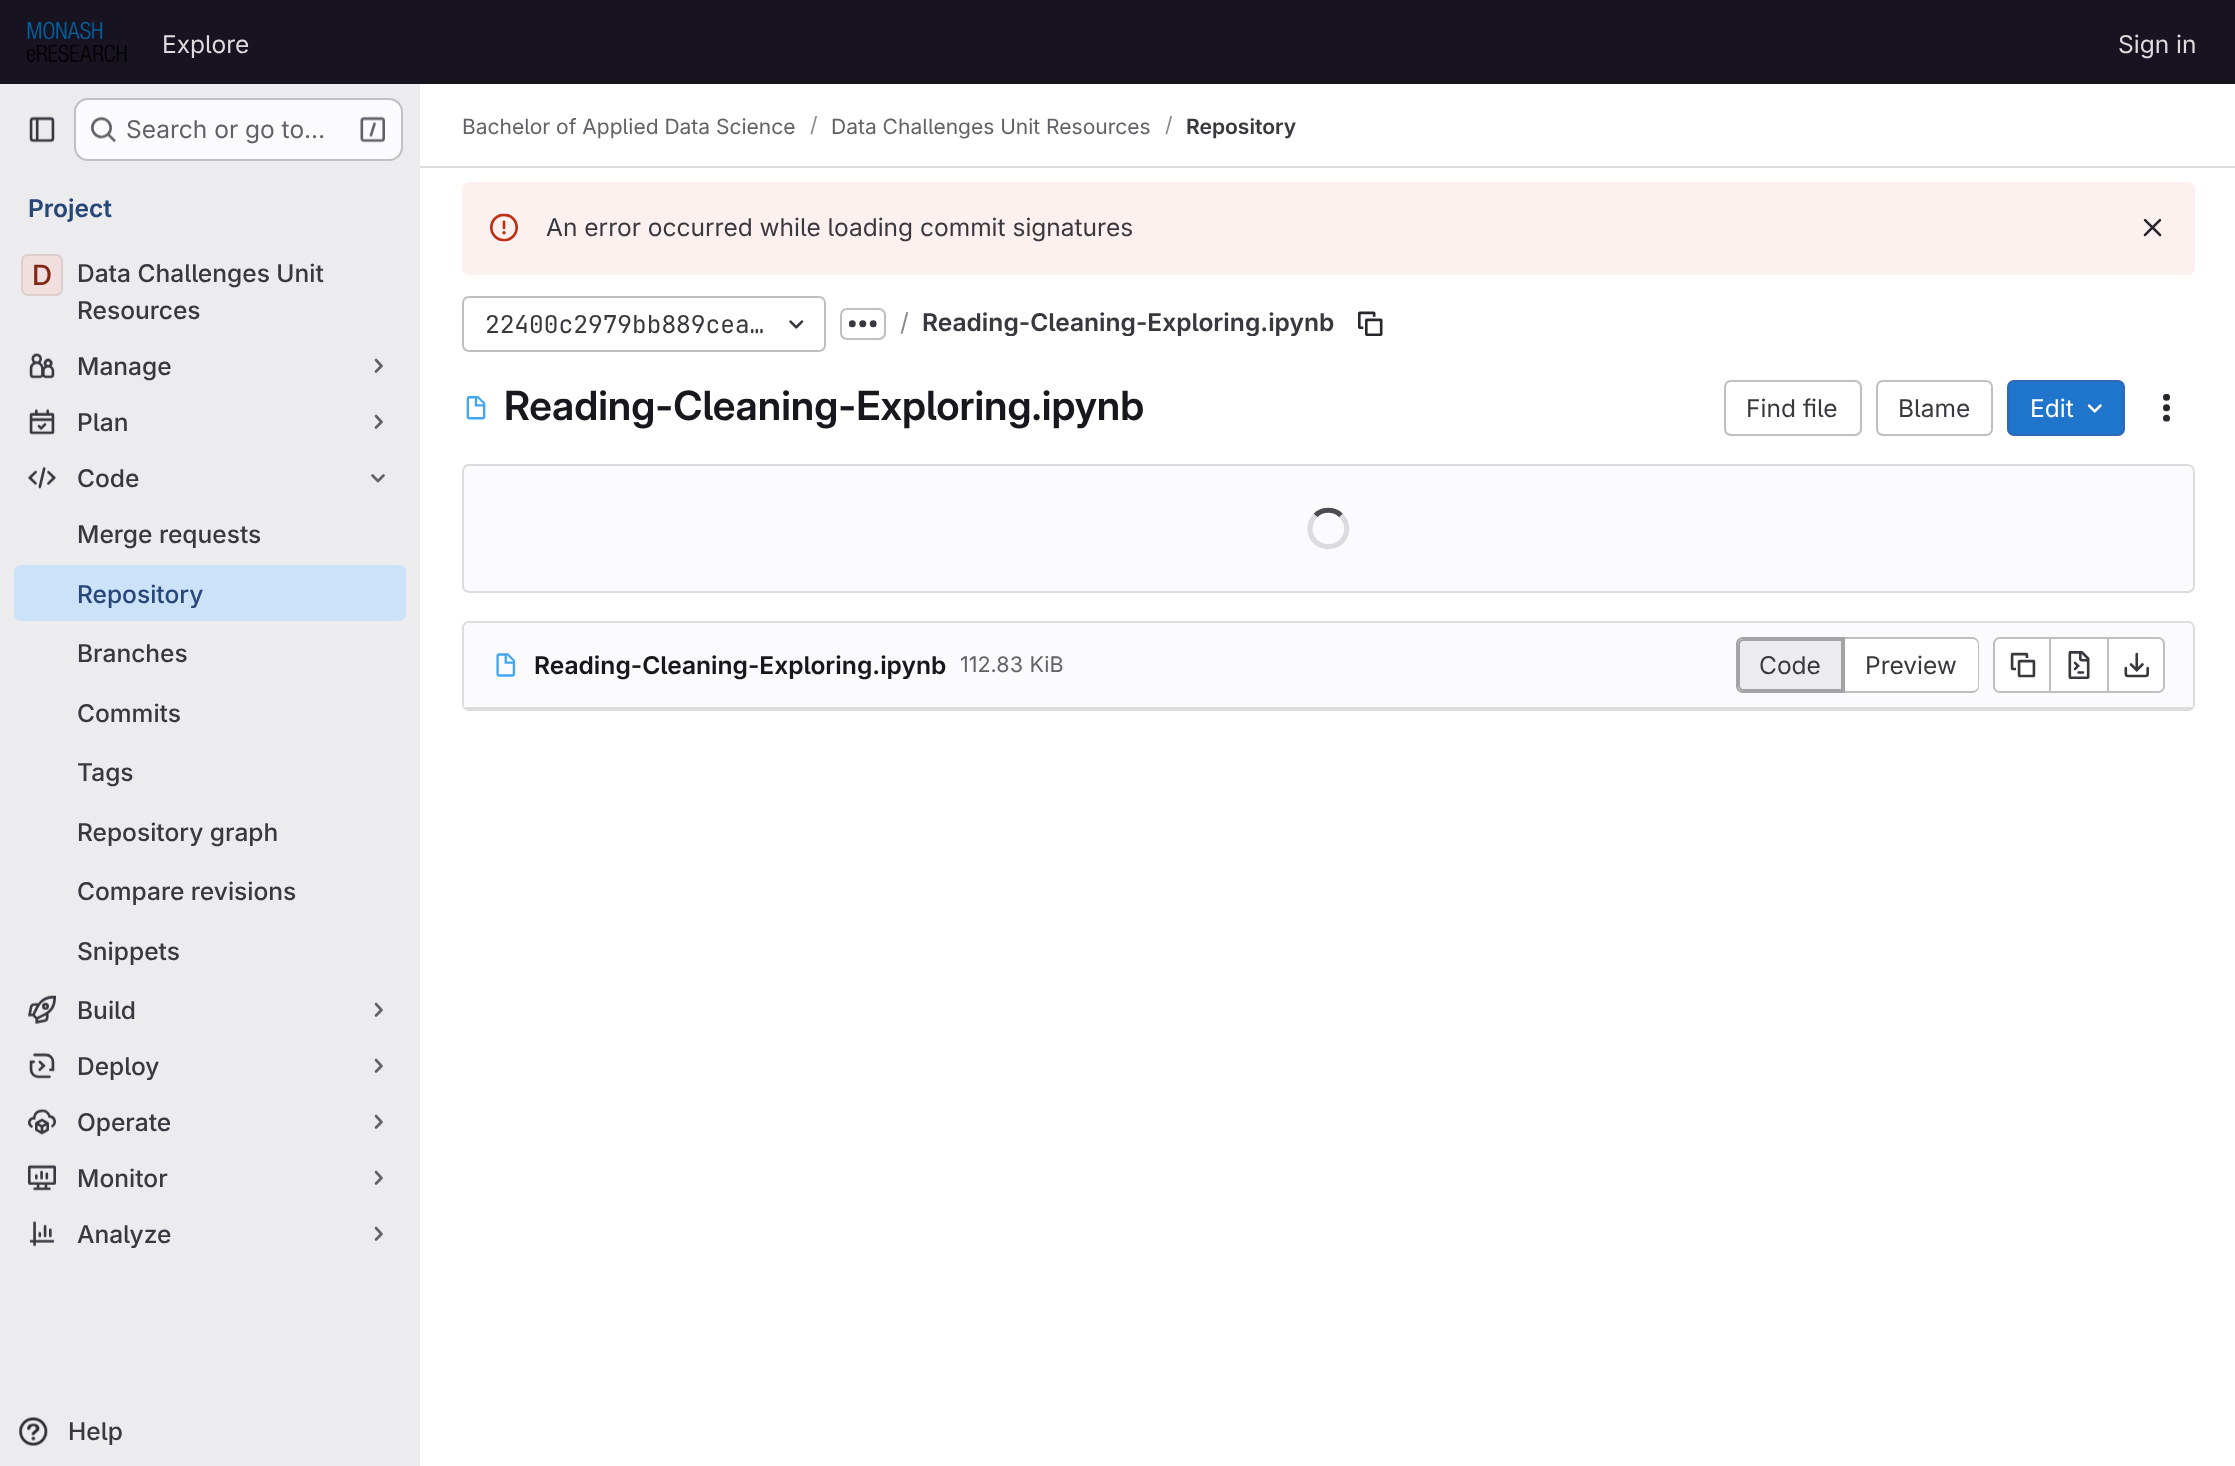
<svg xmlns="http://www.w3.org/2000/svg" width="2235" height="1466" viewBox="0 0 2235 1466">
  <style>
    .t1 { font: 24.5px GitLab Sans; fill: #dcdcde; }
    .t2 { font: 24.5px GitLab Sans; fill: #626168; }
    .t3 { font: 600 24.5px 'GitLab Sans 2'; fill: #284779; }
    .t4 { font: 500 28px 'GitLab Sans 2'; fill: #812713; }
    .t5 { font: 500 24.5px GitLab Sans; fill: #3a383f; }
    .t6 { font: 500 24.5px GitLab Sans; fill: #284779; }
    .t7 { font: 21px GitLab Sans; fill: #626168; }
    .t8 { font: 21px GitLab Sans; fill: #89888d; }
    .t9 { font: 600 21px 'GitLab Sans 2'; fill: #3a383f; }
    .t10 { font: 24.5px GitLab Sans; fill: #3a383f; }
    .t11 { font: 24.5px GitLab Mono; fill: #3a383f; }
    .t12 { font: 24.5px GitLab Sans; fill: #89888d; }
    .t13 { font: 600 24.5px 'GitLab Sans 2'; fill: #3a383f; }
    .t14 { font: 600 40.25px GitLab Sans; fill: #18171d; }
    .t15 { font: 24.5px GitLab Sans; fill: #fff; }
    .t16 { font: 600 24.5px 'GitLab Sans 2'; fill: #18171d; }
    .t17 { font: 21.5px GitLab Sans; fill: #626168; }
  </style>
  <defs>
    <clipPath id="clip1"><rect x="922" y="306" width="413" height="30" rx="7"/></clipPath>
  </defs>
  <rect width="100%" height="100%" fill="#fff"/>
  <rect x="0" y="0" width="2235" height="84" fill="#171321"/>
  <image x="27" y="21" width="100" height="41" href="images/1.png"/>
  <text x="162" y="53" class="t1">Explore</text>
  <text x="2118" y="53" class="t1">Sign in</text>
  <rect x="0" y="84" width="420" height="1382" fill="#ececef"/>
  <image x="29" y="116" width="26" height="27" href="images/2.png"/>
  <rect x="74" y="98" width="329" height="63" rx="14" fill="#fbfafd"/>
  <rect x="75" y="99" width="327" height="61" rx="13" fill="none" stroke="#0505063d" stroke-width="2"/>
  <image x="91" y="116" width="25" height="27" href="images/3.png"/>
  <text x="126" y="138" class="t2">Search or go to…</text>
  <image x="360" y="116" width="25" height="27" href="images/4.png"/>
  <text x="28" y="217" class="t3">Project</text>
  <rect x="21" y="254" width="42" height="42" rx="7" fill="#f0dfde"/>
  <rect x="22" y="255" width="40" height="40" rx="6" fill="none" stroke="#05050614" stroke-width="2"/>
  <text x="32" y="285" class="t4">D</text>
  <text x="77" y="282" class="t5">Data Challenges Unit</text>
  <text x="77" y="319" class="t5">Resources</text>
  <image x="29" y="352" width="26" height="27" href="images/5.png"/>
  <text x="77" y="375" class="t5">Manage</text>
  <path d="M376 360L381.5 366L376 371.5" fill="none" stroke="#626168" stroke-width="2.6" stroke-linecap="round" stroke-linejoin="round"/>
  <image x="29" y="408" width="26" height="27" href="images/6.png"/>
  <text x="77" y="431" class="t5">Plan</text>
  <path d="M376 416L381.5 422L376 427.5" fill="none" stroke="#626168" stroke-width="2.6" stroke-linecap="round" stroke-linejoin="round"/>
  <image x="28" y="466" width="28" height="23" href="images/7.png"/>
  <text x="77" y="487" class="t5">Code</text>
  <path d="M383.5 475.5L378 481L372.5 475.5" fill="none" stroke="#626168" stroke-width="2.6" stroke-linecap="round" stroke-linejoin="round"/>
  <text x="77" y="543" class="t5">Merge requests</text>
  <rect x="14" y="565" width="392" height="56" rx="7" fill="#cbe2f9"/>
  <text x="77" y="603" class="t6">Repository</text>
  <text x="77" y="662" class="t5">Branches</text>
  <text x="77" y="722" class="t5">Commits</text>
  <text x="77" y="781" class="t5">Tags</text>
  <text x="77" y="841" class="t5">Repository graph</text>
  <text x="77" y="900" class="t5">Compare revisions</text>
  <text x="77" y="960" class="t5">Snippets</text>
  <image x="28" y="995" width="28" height="29" href="images/8.png"/>
  <text x="77" y="1019" class="t5">Build</text>
  <path d="M376 1004L381.5 1010L376 1015.5" fill="none" stroke="#626168" stroke-width="2.6" stroke-linecap="round" stroke-linejoin="round"/>
  <image x="29" y="1052" width="26" height="27" href="images/9.png"/>
  <text x="77" y="1075" class="t5">Deploy</text>
  <path d="M376 1060L381.5 1066L376 1071.5" fill="none" stroke="#626168" stroke-width="2.6" stroke-linecap="round" stroke-linejoin="round"/>
  <image x="28" y="1108" width="28" height="27" href="images/10.png"/>
  <text x="77" y="1131" class="t5">Operate</text>
  <path d="M376 1116L381.5 1122L376 1127.5" fill="none" stroke="#626168" stroke-width="2.6" stroke-linecap="round" stroke-linejoin="round"/>
  <image x="28" y="1164" width="28" height="27" href="images/11.png"/>
  <text x="77" y="1187" class="t5">Monitor</text>
  <path d="M376 1172L381.5 1178L376 1183.5" fill="none" stroke="#626168" stroke-width="2.6" stroke-linecap="round" stroke-linejoin="round"/>
  <image x="29" y="1220" width="26" height="27" href="images/12.png"/>
  <text x="77" y="1243" class="t5">Analyze</text>
  <path d="M376 1228L381.5 1234L376 1239.5" fill="none" stroke="#626168" stroke-width="2.6" stroke-linecap="round" stroke-linejoin="round"/>
  <image x="19" y="1417" width="29" height="29" href="images/13.png"/>
  <text x="68" y="1440" class="t5">Help</text>
  <rect x="420" y="166" width="1815" height="2" fill="#dcdcde"/>
  <text x="462" y="134" class="t7">Bachelor of Applied Data Science</text>
  <text x="810" y="132" class="t8">/</text>
  <text x="831" y="134" class="t7">Data Challenges Unit Resources</text>
  <text x="1165" y="132" class="t8">/</text>
  <text x="1186" y="134" class="t9">Repository</text>
  <rect x="462" y="182" width="1733" height="93" rx="7" fill="#fcf1ef"/>
  <image x="490" y="213" width="28" height="29" href="images/14.png"/>
  <text x="546" y="236" class="t10">An error occurred while loading commit signatures</text>
  <image x="2143" y="218" width="19" height="19" href="images/15.png"/>
  <rect x="463" y="297" width="362" height="54" rx="6" fill="none" stroke="#bfbfc3" stroke-width="2"/>
  <text x="485" y="333" class="t11">22400c2979bb889cea…</text>
  <image x="789" y="320" width="15" height="9" href="images/16.png"/>
  <rect x="841" y="309" width="44" height="30" rx="6" fill="none" stroke="#bfbfc3" stroke-width="2"/>
  <image x="848" y="320" width="29" height="8" href="images/17.png"/>
  <text x="900" y="331" class="t12">/</text>
  <g clip-path="url(#clip1)">
    <text x="922" y="331" class="t13">Reading-Cleaning-Exploring.ipynb</text>
  </g>
  <image x="1358" y="311" width="25" height="25" href="images/18.png"/>
  <image x="466" y="396" width="20" height="24" href="images/19.png"/>
  <text x="504" y="420" class="t14">Reading-Cleaning-Exploring.ipynb</text>
  <rect x="1725" y="381" width="136" height="54" rx="6" fill="none" stroke="#bfbfc3" stroke-width="2"/>
  <text x="1746" y="417" class="t10">Find file</text>
  <rect x="1877" y="381" width="115" height="54" rx="6" fill="none" stroke="#bfbfc3" stroke-width="2"/>
  <text x="1898" y="417" class="t10">Blame</text>
  <rect x="2008" y="381" width="116" height="54" rx="6" fill="#1f75cb" stroke="#2f68b4" stroke-width="2"/>
  <text x="2030" y="417" class="t15">Edit</text>
  <image x="2087" y="404" width="15" height="9" href="images/20.png"/>
  <image x="2163" y="393" width="7" height="29" href="images/21.png"/>
  <rect x="463" y="465" width="1731" height="127" rx="6" fill="#fbfafd" stroke="#dcdcde" stroke-width="2"/>
  <path d="M1315.5 515.5C1322.5 508.5 1334 508.5 1341 515.5" fill="none" stroke="#4c4b51" stroke-width="5.2"/>
  <path d="M1341 515.5C1345.5 520 1347.5 526 1346.5 532C1342 553.5 1310 550.5 1310 528.5C1310 523.5 1312 519 1315.5 515.5" fill="none" stroke="#dcdcde" stroke-width="5.2"/>
  <rect x="463" y="622" width="1731" height="88" rx="6" fill="none" stroke="#dcdcde" stroke-width="2"/>
  <path d="M469 623H2188C2191 623 2193 625 2193 628V709H464V628C464 625 466 623 469 623Z" fill="#fbfafd"/>
  <rect x="464" y="707" width="1729" height="2" fill="#dcdcde"/>
  <image x="496" y="653" width="20" height="24" href="images/22.png"/>
  <text x="534" y="674" class="t16">Reading-Cleaning-Exploring.ipynb</text>
  <text x="960" y="672" class="t17">112.83 KiB</text>
  <path d="M1743 640H1842V690H1743C1741 690 1739 688 1739 686V644C1739 642 1741 640 1743 640Z" fill="#ececef" stroke="#a4a3a8" stroke-width="2"/>
  <path d="M1743 637H1843V693H1743C1739 693 1736 690 1736 686V644C1736 640 1739 637 1743 637ZM1743 639H1843V691H1743C1740 691 1738 689 1738 686V644C1738 641 1740 639 1743 639Z" fill="#a4a3a8" fill-rule="evenodd"/>
  <text x="1759" y="674" class="t10">Code</text>
  <path d="M1845 639H1973C1976 639 1978 641 1978 644V686C1978 689 1976 691 1973 691H1845Z" fill="#fff"/>
  <path d="M1844 637H1972C1976 637 1979 640 1979 644V686C1979 690 1976 693 1972 693H1844ZM1844 639H1972C1975 639 1978 641 1978 644V686C1978 689 1975 691 1972 691H1844Z" fill="#bfbfc3" fill-rule="evenodd"/>
  <rect x="1843" y="637" width="2" height="56" fill="#a4a3a8"/>
  <text x="1865" y="674" class="t10">Preview</text>
  <path d="M2000 639H2049V691H2000C1997 691 1995 689 1995 686V644C1995 641 1997 639 2000 639Z" fill="#fff"/>
  <path d="M2000 637H2049V693H2000C1996 693 1993 690 1993 686V644C1993 640 1996 637 2000 637ZM2000 639H2049V691H2000C1997 691 1995 689 1995 686V644C1995 641 1997 639 2000 639Z" fill="#bfbfc3" fill-rule="evenodd"/>
  <image x="2010" y="652" width="26" height="26" href="images/23.png"/>
  <rect x="2051" y="639" width="56" height="52" fill="#fff"/>
  <rect x="2051" y="637" width="56" height="2" fill="#bfbfc3"/>
  <rect x="2051" y="691" width="56" height="2" fill="#bfbfc3"/>
  <rect x="2049" y="637" width="2" height="56" fill="#bfbfc3"/>
  <image x="2068" y="651" width="22" height="28" href="images/24.png"/>
  <path d="M2109 639H2158C2161 639 2163 641 2163 644V686C2163 689 2161 691 2158 691H2109Z" fill="#fff"/>
  <path d="M2109 637H2158C2162 637 2165 640 2165 644V686C2165 690 2162 693 2158 693H2109ZM2109 639H2158C2161 639 2163 641 2163 644V686C2163 689 2161 691 2158 691H2109Z" fill="#bfbfc3" fill-rule="evenodd"/>
  <rect x="2107" y="637" width="2" height="56" fill="#bfbfc3"/>
  <image x="2124" y="652" width="25" height="26" href="images/25.png"/>
</svg>
